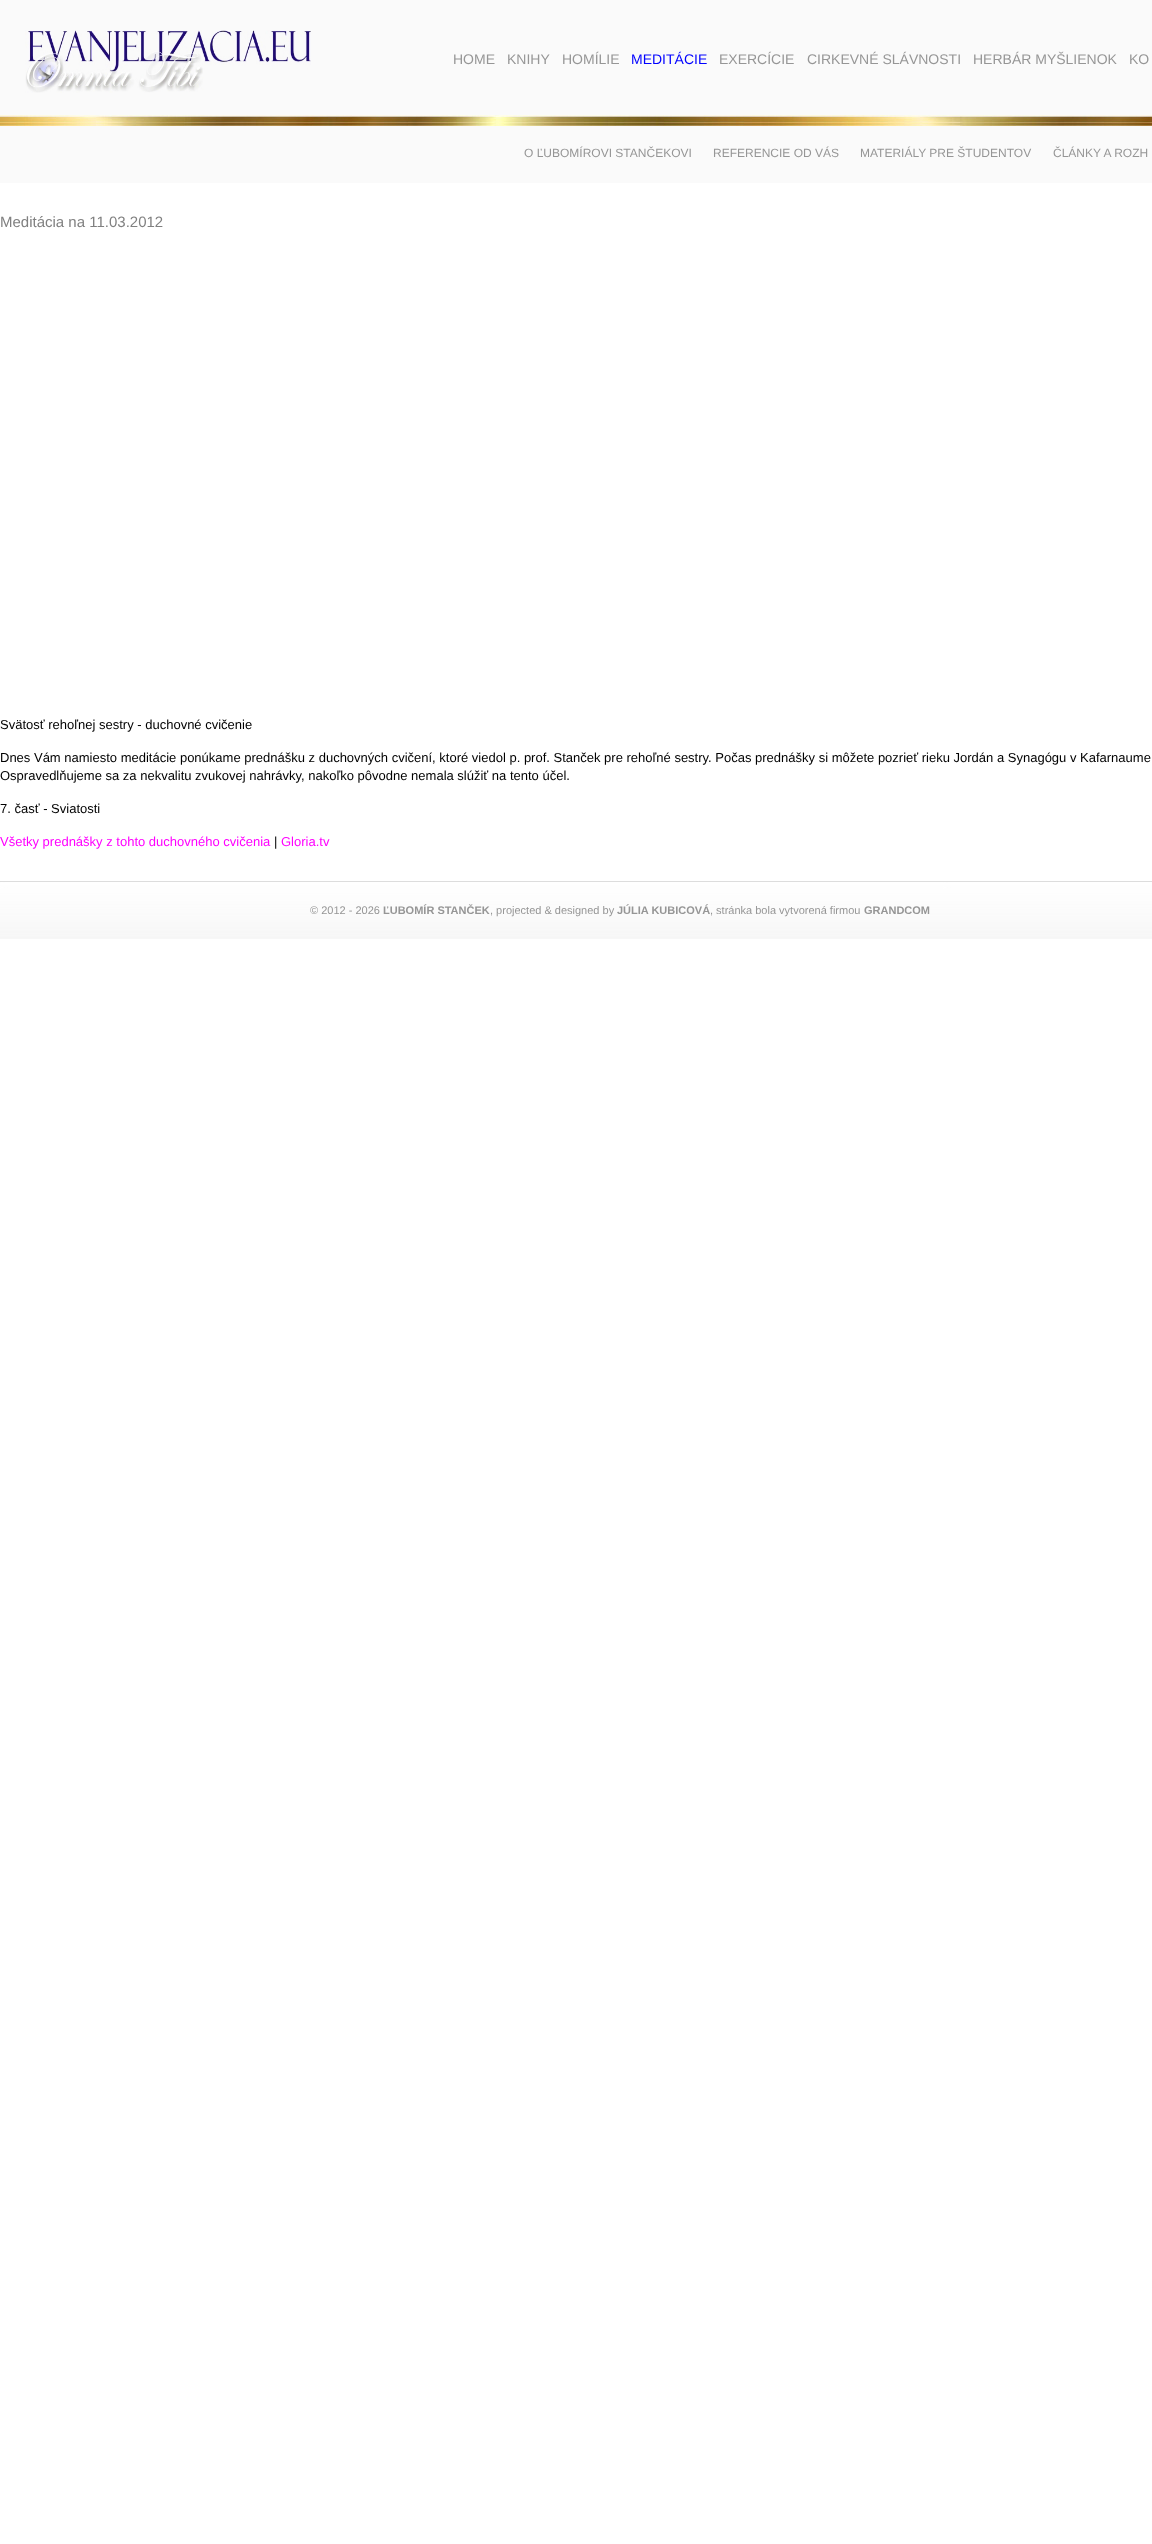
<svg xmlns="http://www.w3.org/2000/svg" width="1152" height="2544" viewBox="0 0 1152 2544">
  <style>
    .t1 { font: 14px Liberation Sans; fill: #969696; }
    .t2 { font: 14px Liberation Sans; fill: #00f; }
    .t3 { font: 12px Liberation Sans; fill: #969696; }
    .t4 { font: 15px Liberation Sans; fill: #808080; }
    .t5 { font: 13px Liberation Sans; fill: #000; }
    .t6 { font: 13px Liberation Sans; fill: #f0f; }
    .t7 { font: 11px Liberation Sans; fill: #969696; }
    .t8 { font: bold 11px Liberation Sans; fill: #969696; }
  </style>
  <rect width="100%" height="100%" fill="#fff"/>
  <rect x="0" y="0" width="1152" height="115" fill="#fafafa"/>
  <image x="0" y="115" width="1152" height="8" href="images/1.png"/>
  <image x="25" y="30" width="286" height="63" href="images/2.png"/>
  <text x="453" y="64" class="t1">HOME</text>
  <text x="507" y="64" class="t1">KNIHY</text>
  <text x="562" y="64" class="t1">HOMÍLIE</text>
  <text x="631" y="64" class="t2">MEDITÁCIE</text>
  <text x="719" y="64" class="t1">EXERCÍCIE</text>
  <text x="807" y="64" class="t1">CIRKEVNÉ SLÁVNOSTI</text>
  <text x="973" y="64" class="t1">HERBÁR MYŠLIENOK</text>
  <text x="1129" y="64" class="t1">KO</text>
  <rect x="0" y="126" width="1152" height="57" fill="#fafafa"/>
  <image x="0" y="123" width="1152" height="3" href="images/3.png"/>
  <text x="524" y="157" class="t3">O ĽUBOMÍROVI STANČEKOVI</text>
  <text x="713" y="157" class="t3">REFERENCIE OD VÁS</text>
  <text x="860" y="157" class="t3">MATERIÁLY PRE ŠTUDENTOV</text>
  <text x="1053" y="157" class="t3">ČLÁNKY A ROZH</text>
  <text x="0" y="227" class="t4">Meditácia na 11.03.2012</text>
  <text x="0" y="729" class="t5">Svätosť rehoľnej sestry - duchovné cvičenie</text>
  <text x="0" y="762" class="t5">Dnes Vám namiesto meditácie ponúkame prednášku z duchovných cvičení, ktoré viedol p. prof. Stanček pre rehoľné sestry. Počas prednášky si môžete pozrieť rieku Jordán a Synagógu v Kafarnaume</text>
  <text x="0" y="780" class="t5">Ospravedlňujeme sa za nekvalitu zvukovej nahrávky, nakoľko pôvodne nemala slúžiť na tento účel.</text>
  <text x="0" y="813" class="t5">7. časť - Sviatosti</text>
  <text x="0" y="846" class="t6">Všetky prednášky z tohto duchovného cvičenia</text>
  <text x="274" y="846" class="t5">|</text>
  <text x="281" y="846" class="t6">Gloria.tv</text>
  <image x="0" y="881" width="1152" height="58" href="images/4.png"/>
  <text x="310" y="914" class="t7">© 2012 - 2026</text>
  <text x="383" y="914" class="t8">ĽUBOMÍR STANČEK</text>
  <text x="490" y="914" class="t7">, projected &amp; designed by</text>
  <text x="617" y="914" class="t8">JÚLIA KUBICOVÁ</text>
  <text x="710" y="914" class="t7">, stránka bola vytvorená firmou</text>
  <text x="864" y="914" class="t8">GRANDCOM</text>
</svg>
